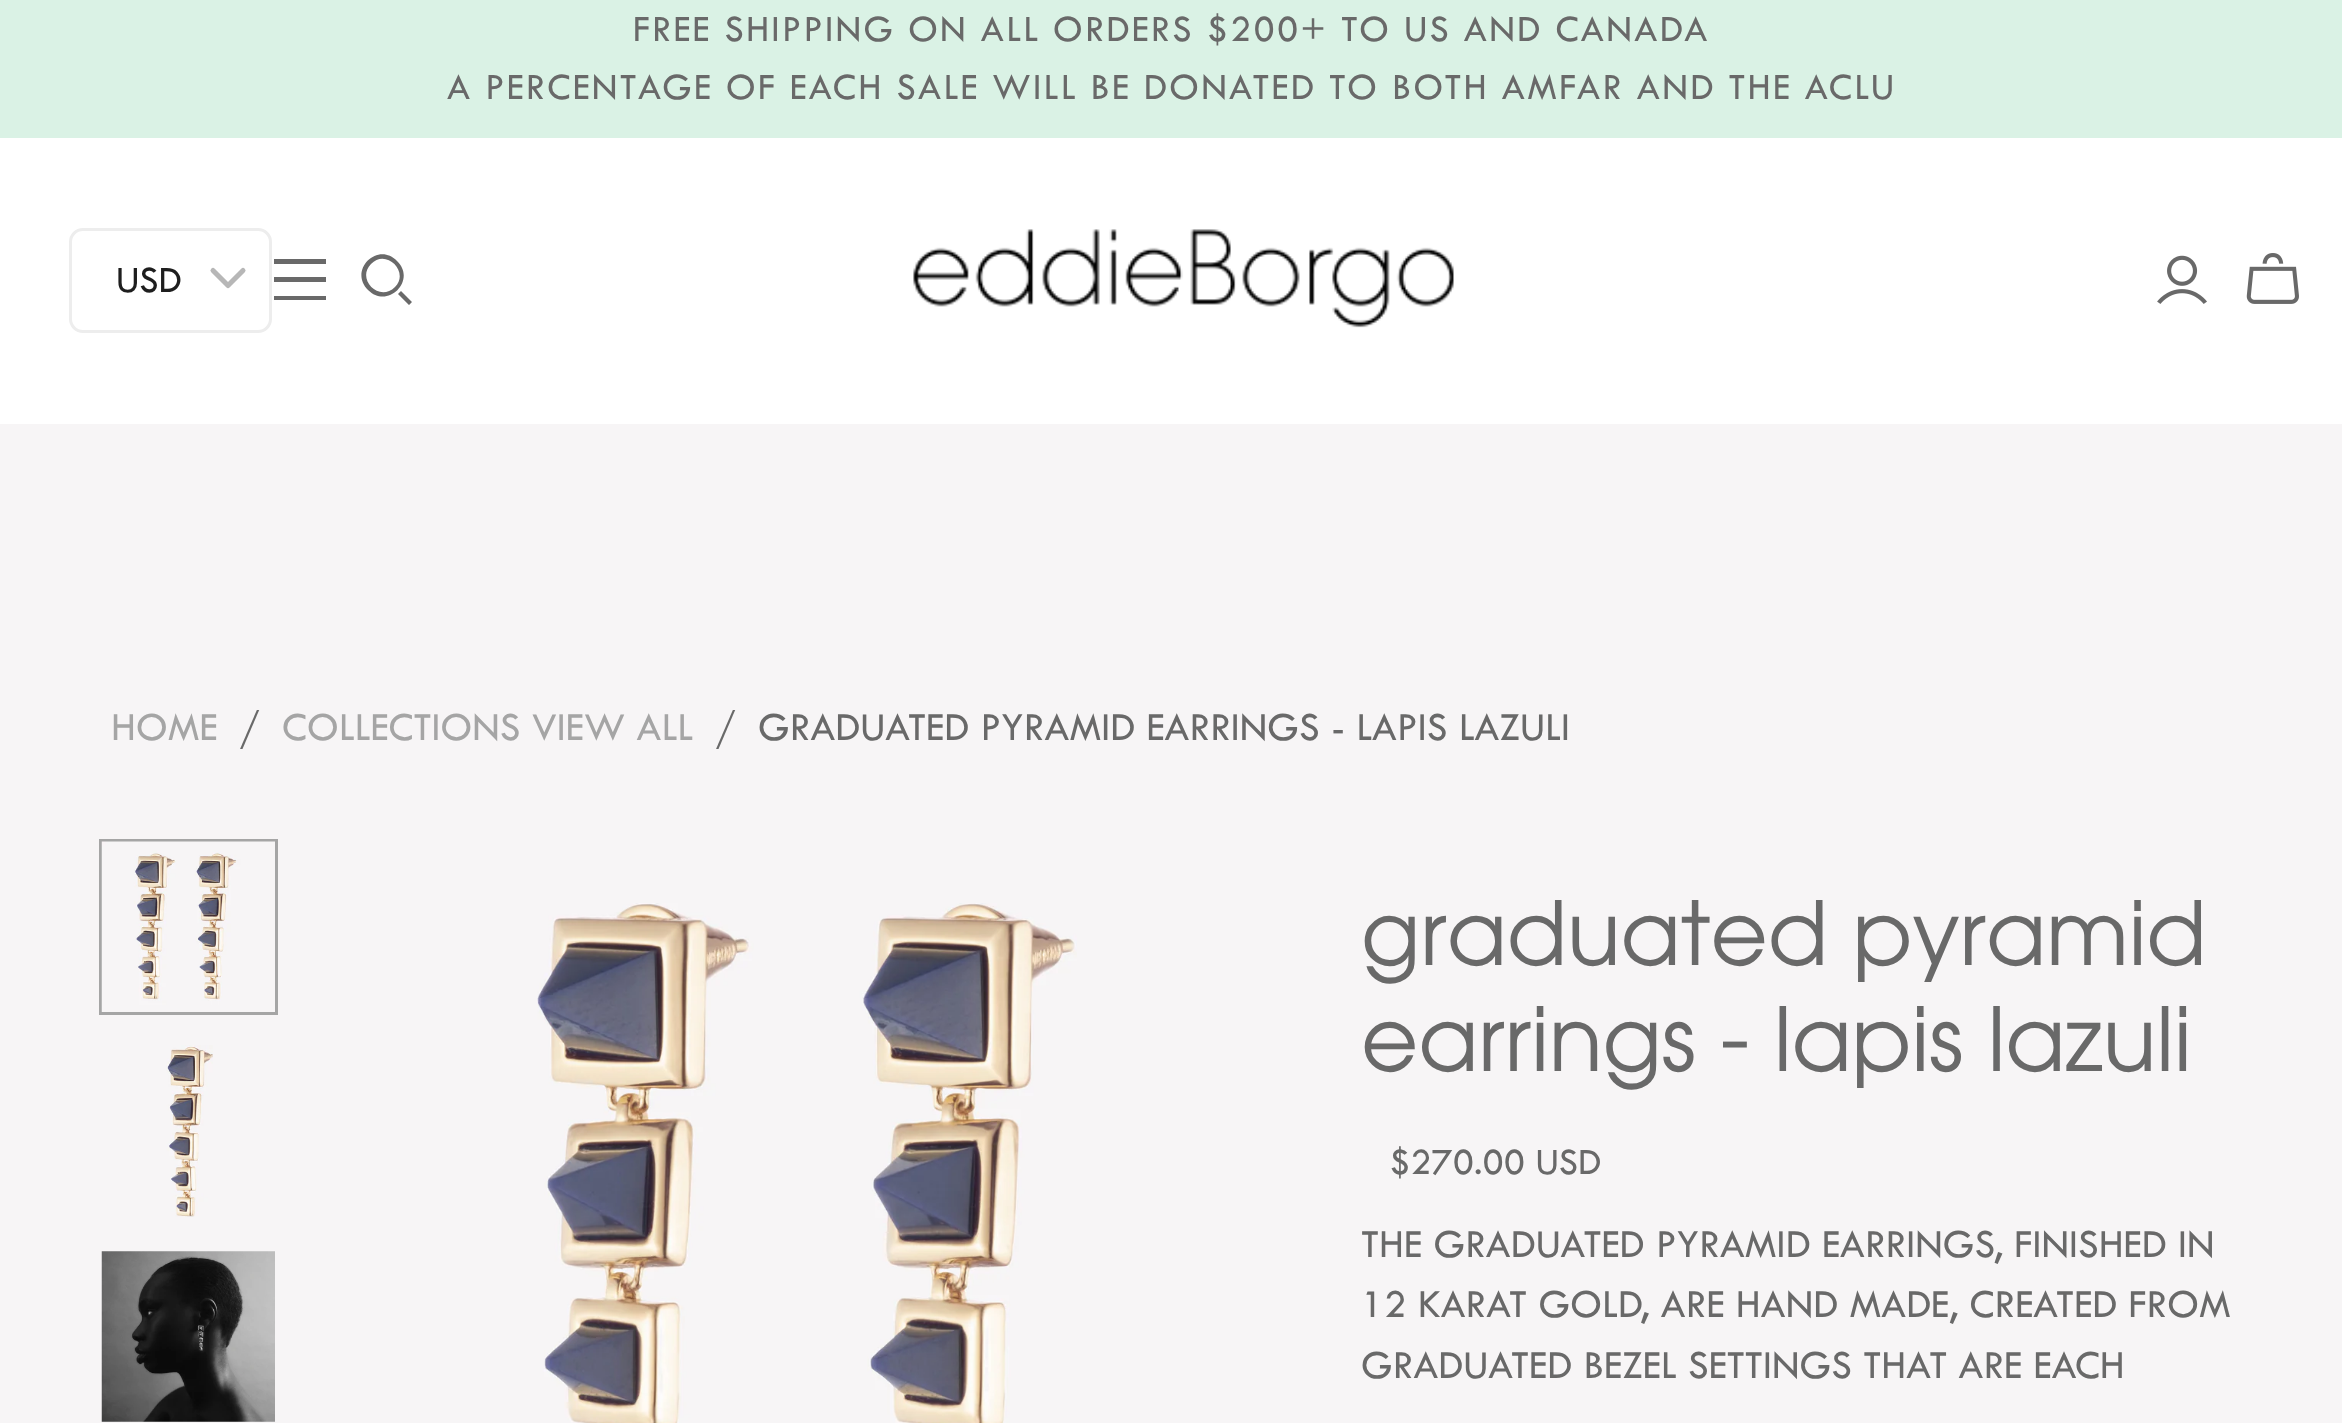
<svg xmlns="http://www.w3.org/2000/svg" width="2342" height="1423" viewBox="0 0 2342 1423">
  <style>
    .t1 { font: 38.5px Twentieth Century; letter-spacing: 2.2px; fill: #696969; }
    .t2 { font: 38.5px Twentieth Century; fill: #1e1e1e; }
    .t3 { font: 41.25px Twentieth Century; fill: #a5a5a5; }
    .t4 { font: 41.25px Twentieth Century; fill: #696969; }
    .t5 { font: 88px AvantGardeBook; fill: #696969; }
    .t6 { font: 38.5px Twentieth Century; fill: #696969; }
  </style>
  <rect width="100%" height="100%" fill="#f7f5f6"/>
  <rect x="0" y="0" width="2342" height="138" fill="#daf2e5"/>
  <text x="633" y="41" class="t1">FREE SHIPPING ON ALL ORDERS $200+ TO US AND CANADA</text>
  <text x="447" y="99" class="t1">A PERCENTAGE OF EACH SALE WILL BE DONATED TO BOTH AMFAR AND THE ACLU</text>
  <rect x="0" y="138" width="2342" height="286" fill="#fff"/>
  <rect x="70.5" y="229.5" width="200" height="102" rx="12.5" fill="none" stroke="#ededed" stroke-width="3"/>
  <text x="116" y="292" class="t2">USD</text>
  <path d="M213 270.5L228 285.5L243 270.5" fill="none" stroke="#b7b7b7" stroke-width="5" stroke-linecap="round" stroke-linejoin="round"/>
  <path d="M326 264H274V259H326ZM326 282H274V277H326ZM274 300H326V296H274Z" fill="#696969" fill-rule="evenodd"/>
  <path d="M371 264C356 279 379 303 395 287C410 272 386 248 371 264ZM368 290C348 270 378 241 397 261C417 280 388 310 368 290ZM409 305L398 294L401 291L412 302Z" fill="#696969" fill-rule="evenodd"/>
  <image x="913" y="229" width="541" height="99" href="images/1.png"/>
  <image x="2157" y="255" width="50" height="49" href="images/2.png"/>
  <image x="2246" y="253" width="53" height="51" href="images/3.png"/>
  <text x="111" y="740" class="t3">HOME</text>
  <text x="239" y="740" class="t4">/</text>
  <text x="282" y="740" class="t3">COLLECTIONS VIEW ALL</text>
  <text x="715" y="740" class="t4">/</text>
  <text x="758" y="740" class="t4">GRADUATED PYRAMID EARRINGS - LAPIS LAZULI</text>
  <rect x="100.5" y="840.5" width="176" height="173" fill="none" stroke="#a5a5a5" stroke-width="3"/>
  <image x="101" y="841" width="174" height="171" href="images/4.png"/>
  <image x="166" y="1045" width="47" height="172" href="images/5.png"/>
  <image x="101" y="1251" width="174" height="171" href="images/6.png"/>
  <image x="537" y="903" width="540" height="520" href="images/7.png"/>
  <text x="1361" y="965" class="t5">graduated pyramid</text>
  <text x="1361" y="1071" class="t5">earrings - lapis lazuli</text>
  <text x="1389" y="1174" class="t6">$270.00 USD</text>
  <text x="1361" y="1257" class="t4">THE GRADUATED PYRAMID EARRINGS, FINISHED IN</text>
  <text x="1361" y="1317" class="t4">12 KARAT GOLD, ARE HAND MADE, CREATED FROM</text>
  <text x="1361" y="1378" class="t4">GRADUATED BEZEL SETTINGS THAT ARE EACH</text>
</svg>
